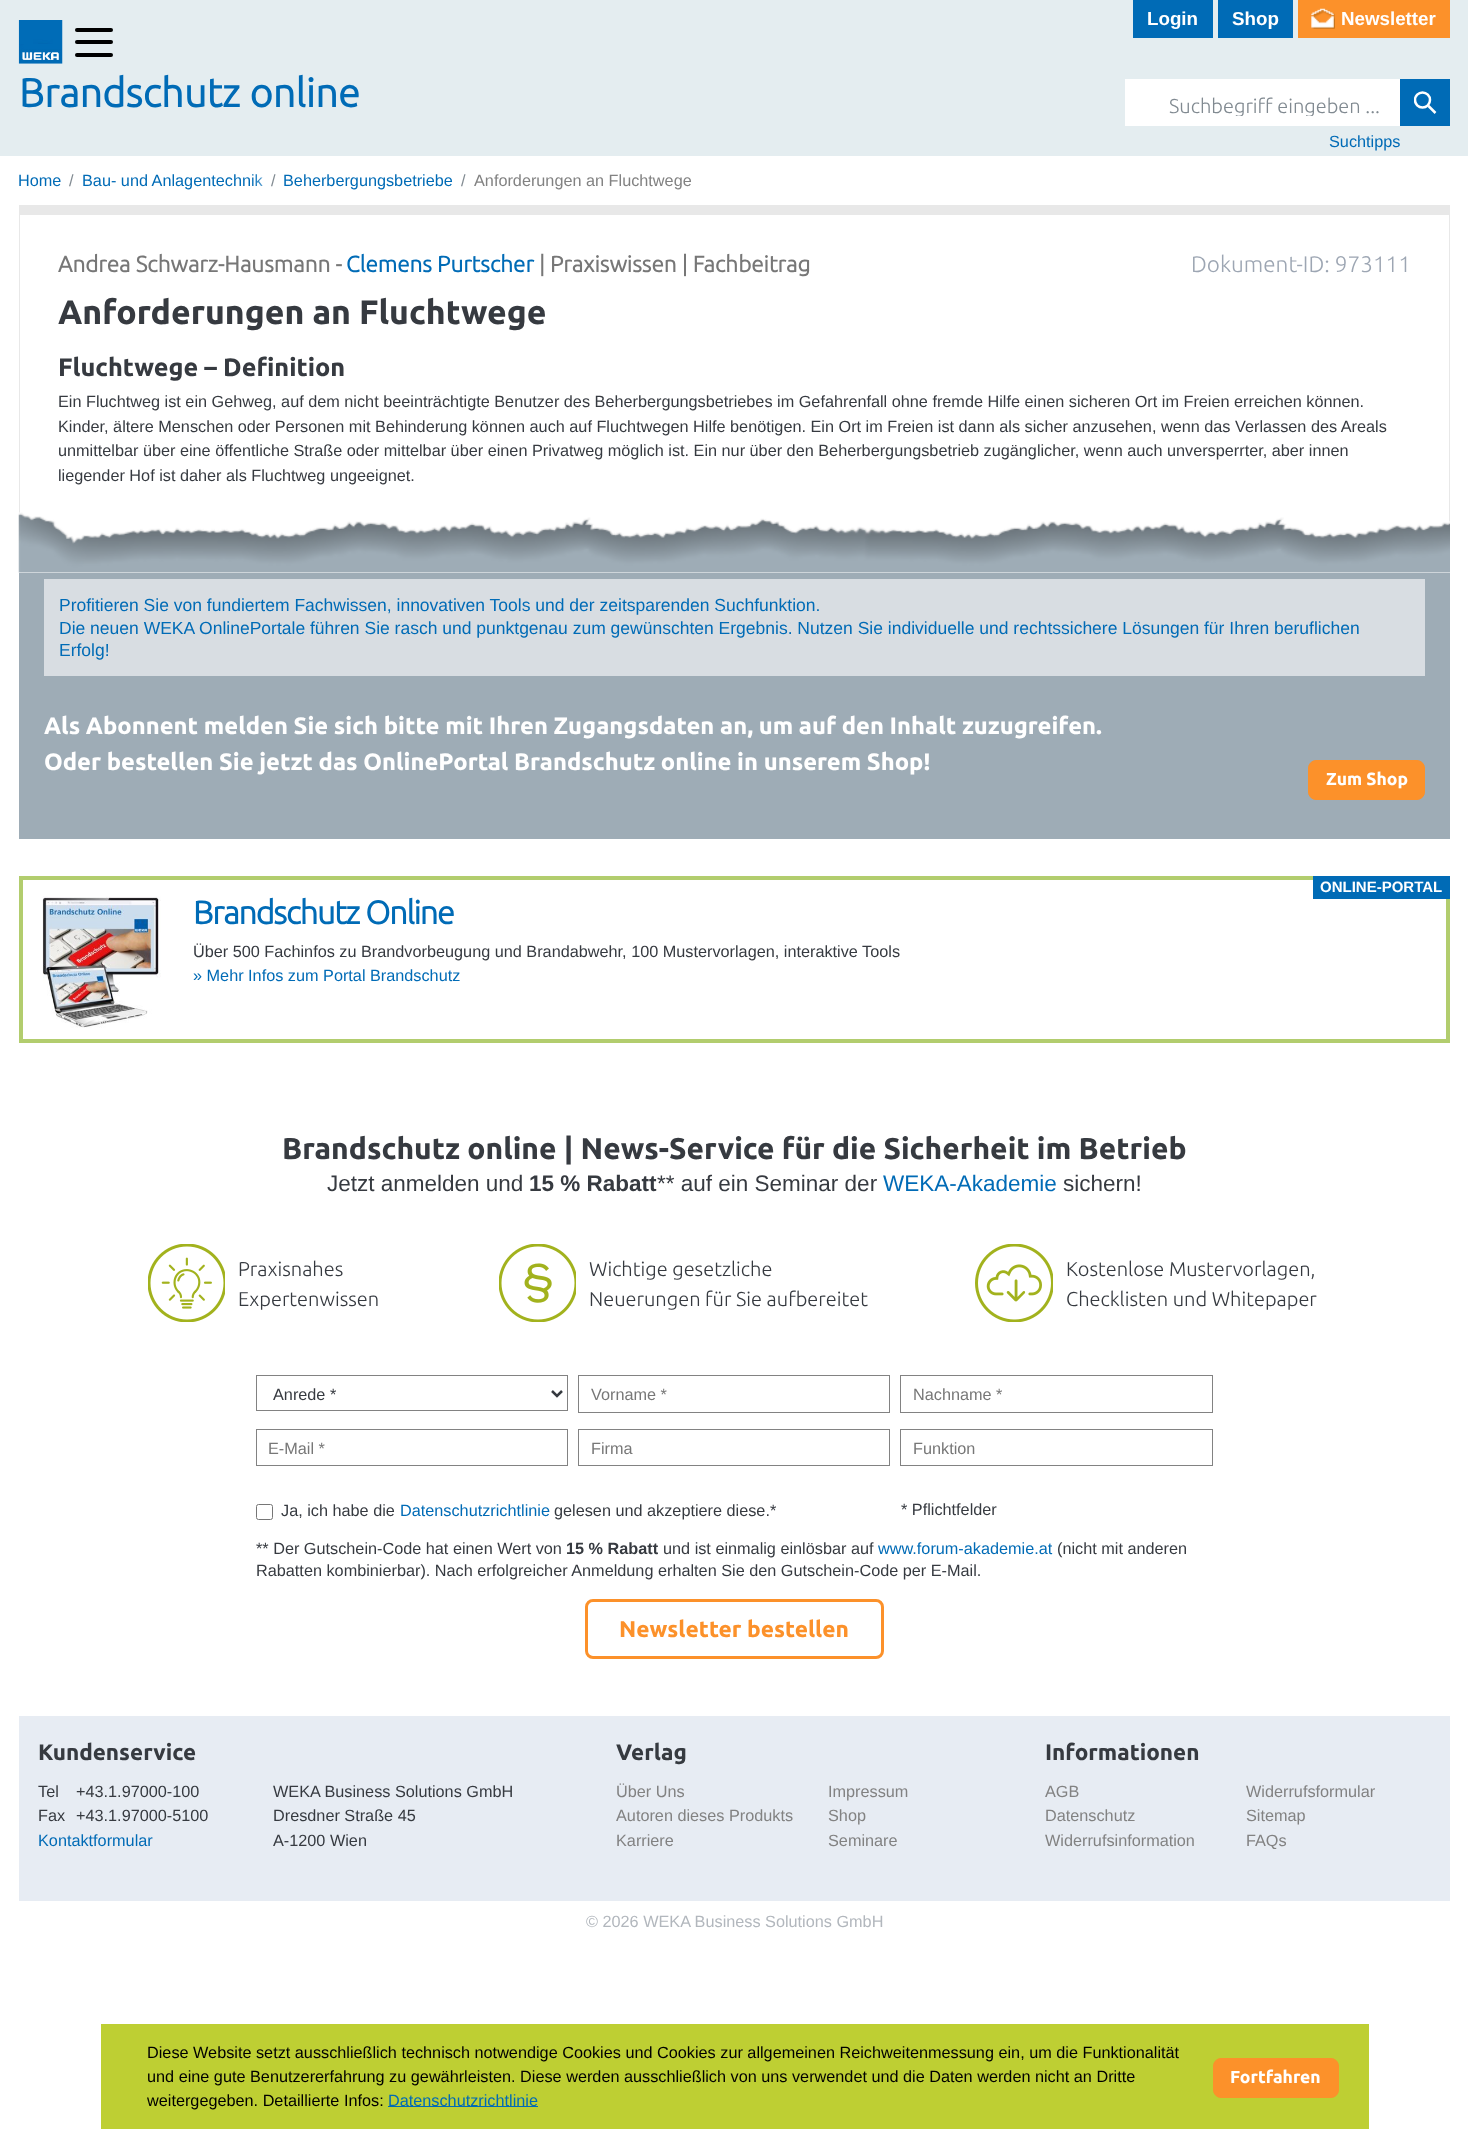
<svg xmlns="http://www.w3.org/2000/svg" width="1468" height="2135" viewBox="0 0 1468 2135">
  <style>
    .t1 { font: bold 18.75px Liberation Sans; fill: #fff; }
    .t2 { font: bold 40px Ubuntu; fill: #006bb6; }
    .t3 { font: 300 20px Ubuntu; fill: #818a91; }
    .t4 { font: 16.25px Liberation Sans; fill: #006bb6; }
    .t5 { font: 16.25px Liberation Sans; fill: #818a91; }
    .t6 { font: 16.25px Liberation Sans; fill: #828282; }
    .t7 { font: bold 22.5px Ubuntu; fill: #777; }
    .t8 { font: bold 22.5px Ubuntu; fill: #006bb6; }
    .t9 { font: 300 22.5px Ubuntu; fill: #9da6b3; }
    .t10 { font: bold 33.75px 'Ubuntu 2'; fill: #363a40; }
    .t11 { font: bold 25.25px 'Ubuntu 2'; fill: #363a40; }
    .t12 { font: 16.25px Liberation Sans; fill: #363a40; }
    .t13 { font: 17.5px Liberation Sans; fill: #006bb6; }
    .t14 { font: bold 23.75px 'Ubuntu 2'; fill: #fff; }
    .t15 { font: bold 17.5px 'Ubuntu 2'; fill: #fff; }
    .t16 { font: bold 15px Liberation Sans; fill: #fff; }
    .t17 { font: bold 32.5px Ubuntu; letter-spacing: -1.25px; fill: #006bb6; }
    .t18 { font: bold 30px 'Ubuntu 2'; fill: #363a40; }
    .t19 { font: 22.5px Liberation Sans; fill: #363a40; }
    .t20 { font: bold 22.5px Liberation Sans; fill: #363a40; }
    .t21 { font: 22.5px Liberation Sans; fill: #006bb6; }
    .t22 { font: 300 20px Ubuntu; fill: #363a40; }
    .t23 { font: 16.25px Liberation Sans; fill: #777; }
    .t24 { font: bold 16.25px Liberation Sans; fill: #363a40; }
    .t25 { font: bold 22.75px 'Ubuntu 2'; fill: #fc912a; }
    .t26 { font: bold 22.5px 'Ubuntu 2'; fill: #363a40; }
    .t27 { font: 16.25px Liberation Sans; fill: #b2b7bd; }
    .t28 { font: 16.25px Liberation Sans; fill: #000; }
  </style>
  <defs>
    <clipPath id="clip1"><rect x="1169" y="94" width="210" height="22"/></clipPath>
    <clipPath id="clip2"><rect x="1414" y="91" width="22" height="23"/></clipPath>
    <linearGradient id="g1" gradientUnits="userSpaceOnUse" x1="234" y1="181" x2="283" y2="181"><stop offset="0.35" stop-color="#fff" stop-opacity="0"/><stop offset="1" stop-color="#fff"/></linearGradient>
  </defs>
  <rect width="100%" height="100%" fill="#fff"/>
  <rect x="0" y="0" width="1468" height="156" fill="#e4edf0"/>
  <rect x="1133" y="0" width="80" height="38" fill="#006bb6"/>
  <text x="1147" y="25" class="t1">Login</text>
  <rect x="1218" y="0" width="75" height="38" fill="#006bb6"/>
  <text x="1232" y="25" class="t1">Shop</text>
  <rect x="1298" y="0" width="152" height="38" fill="#fc912a"/>
  <image x="1311" y="8" width="24" height="21" href="images/1.png"/>
  <text x="1341" y="25" class="t1">Newsletter</text>
  <image x="18" y="20" width="45" height="44" href="images/2.png"/>
  <rect x="75" y="40" width="38" height="4" rx="2" fill="#000"/>
  <rect x="75" y="28" width="38" height="4" rx="2" fill="#000"/>
  <rect x="75" y="53" width="38" height="4" rx="2" fill="#000"/>
  <text x="19" y="107" class="t2">Brandschutz online</text>
  <rect x="1125" y="79" width="275" height="47" fill="#fff"/>
  <g clip-path="url(#clip1)">
    <text x="1169" y="113" class="t3">Suchbegriff eingeben ...</text>
  </g>
  <rect x="1400" y="79" width="50" height="47" fill="#006bb6"/>
  <g clip-path="url(#clip2)">
    <circle cx="1422.5" cy="100" r="7.5" fill="none" stroke="#fff" stroke-width="2.5"/>
  </g>
  <path d="M1428.5 106L1435.5 113" fill="none" stroke="#fff" stroke-width="2.5"/>
  <text x="1329" y="147" class="t4">Suchtipps</text>
  <text x="18" y="186" class="t4">Home</text>
  <text x="69" y="186" class="t5">/</text>
  <text x="82" y="186" class="t4">Bau- und Anlagentechnik</text>
  <rect x="252" y="174" width="11" height="12" fill="url(#g1)"/>
  <text x="271" y="186" class="t5">/</text>
  <text x="283" y="186" class="t4">Beherbergungsbetriebe</text>
  <text x="461" y="186" class="t5">/</text>
  <text x="474" y="186" class="t6">Anforderungen an Fluchtwege</text>
  <rect x="19" y="205" width="1431" height="9" fill="#e8e8e8"/>
  <rect x="19.5" y="214.5" width="1430" height="328" fill="none" stroke="#e8e8e8"/>
  <text x="58" y="272" class="t7">Andrea Schwarz-Hausmann -</text>
  <text x="346" y="272" class="t8">Clemens Purtscher</text>
  <text x="539" y="272" class="t7">| Praxiswissen | Fachbeitrag</text>
  <text x="1191" y="272" class="t9">Dokument-ID: 973111</text>
  <text x="58" y="324" class="t10">Anforderungen an Fluchtwege</text>
  <text x="58" y="376" class="t11">Fluchtwege – Definition</text>
  <text x="58" y="407" class="t12">Ein Fluchtweg ist ein Gehweg, auf dem nicht beeinträchtigte Benutzer des Beherbergungsbetriebes im Gefahrenfall ohne fremde Hilfe einen sicheren Ort im Freien erreichen können.</text>
  <text x="58" y="432" class="t12">Kinder, ältere Menschen oder Personen mit Behinderung können auch auf Fluchtwegen Hilfe benötigen. Ein Ort im Freien ist dann als sicher anzusehen, wenn das Verlassen des Areals</text>
  <text x="58" y="456" class="t12">unmittelbar über eine öffentliche Straße oder mittelbar über einen Privatweg möglich ist. Ein nur über den Beherbergungsbetrieb zugänglicher, wenn auch unversperrter, aber innen</text>
  <text x="58" y="481" class="t12">liegender Hof ist daher als Fluchtweg ungeeignet.</text>
  <image x="18" y="512" width="1432" height="61" href="images/3.png"/>
  <rect x="19" y="573" width="1431" height="266" fill="#9eacb6"/>
  <rect x="44" y="579" width="1381" height="97" fill="#d8dde2"/>
  <text x="59" y="611" class="t13">Profitieren Sie von fundiertem Fachwissen, innovativen Tools und der zeitsparenden Suchfunktion.</text>
  <text x="59" y="634" class="t13">Die neuen WEKA OnlinePortale führen Sie rasch und punktgenau zum gewünschten Ergebnis. Nutzen Sie individuelle und rechtssichere Lösungen für Ihren beruflichen</text>
  <text x="59" y="656" class="t13">Erfolg!</text>
  <text x="44" y="734" class="t14">Als Abonnent melden Sie sich bitte mit Ihren Zugangsdaten an, um auf den Inhalt zuzugreifen.</text>
  <text x="44" y="770" class="t14">Oder bestellen Sie jetzt das OnlinePortal Brandschutz online in unserem Shop!</text>
  <rect x="1308.5" y="760.5" width="116" height="39" rx="7.5" fill="#fc912a" stroke="#fc912a"/>
  <text x="1326" y="785" class="t15">Zum Shop</text>
  <rect x="21" y="878" width="1427" height="163" fill="none" stroke="#b2cd6e" stroke-width="4"/>
  <rect x="1313" y="876" width="137" height="23" fill="#006bb6"/>
  <text x="1320" y="892" class="t16">ONLINE-PORTAL</text>
  <image x="42" y="896" width="119" height="132" href="images/4.png"/>
  <text x="193" y="924" class="t17">Brandschutz Online</text>
  <text x="193" y="957" class="t12">Über 500 Fachinfos zu Brandvorbeugung und Brandabwehr, 100 Mustervorlagen, interaktive Tools</text>
  <text x="193" y="981" class="t4">» Mehr Infos zum Portal Brandschutz</text>
  <text x="282" y="1159" class="t18">Brandschutz online | News-Service für die Sicherheit im Betrieb</text>
  <text x="327" y="1191" class="t19">Jetzt anmelden und</text>
  <text x="529" y="1191" class="t20">15 % Rabatt</text>
  <text x="657" y="1191" class="t19">** auf ein Seminar der</text>
  <text x="883" y="1191" class="t21">WEKA-Akademie</text>
  <text x="1063" y="1191" class="t19">sichern!</text>
  <image x="148" y="1244" width="77" height="78" href="images/5.png"/>
  <text x="238" y="1276" class="t22">Praxisnahes</text>
  <text x="238" y="1306" class="t22">Expertenwissen</text>
  <image x="499" y="1244" width="77" height="78" href="images/6.png"/>
  <text x="589" y="1276" class="t22">Wichtige gesetzliche</text>
  <text x="589" y="1306" class="t22">Neuerungen für Sie aufbereitet</text>
  <image x="975" y="1244" width="78" height="78" href="images/7.png"/>
  <text x="1066" y="1276" class="t22">Kostenlose Mustervorlagen,</text>
  <text x="1066" y="1306" class="t22">Checklisten und Whitepaper</text>
  <rect x="256.5" y="1375.5" width="311" height="35" fill="none" stroke="#828282"/>
  <path d="M552 1391L557 1396L562 1391" fill="none" stroke="#363a40" stroke-width="2.5"/>
  <text x="273" y="1400" class="t12">Anrede *</text>
  <rect x="578.5" y="1375.5" width="311" height="37" fill="none" stroke="#828282"/>
  <text x="591" y="1400" class="t23">Vorname *</text>
  <rect x="900.5" y="1375.5" width="312" height="37" fill="none" stroke="#828282"/>
  <text x="913" y="1400" class="t23">Nachname *</text>
  <rect x="256.5" y="1429.5" width="311" height="36" fill="none" stroke="#828282"/>
  <text x="268" y="1454" class="t23">E-Mail *</text>
  <rect x="578.5" y="1429.5" width="311" height="36" fill="none" stroke="#828282"/>
  <text x="591" y="1454" class="t23">Firma</text>
  <rect x="900.5" y="1429.5" width="312" height="36" fill="none" stroke="#828282"/>
  <text x="913" y="1454" class="t23">Funktion</text>
  <rect x="256.5" y="1504.5" width="16" height="15" rx="2" fill="none" stroke="#767676"/>
  <text x="281" y="1516" class="t12">Ja, ich habe die</text>
  <text x="400" y="1516" class="t4">Datenschutzrichtlinie</text>
  <text x="554" y="1516" class="t12">gelesen und akzeptiere diese.*</text>
  <text x="901" y="1515" class="t12">* Pflichtfelder</text>
  <text x="256" y="1554" class="t12">** Der Gutschein-Code hat einen Wert von</text>
  <text x="566" y="1554" class="t24">15 % Rabatt</text>
  <text x="663" y="1554" class="t12">und ist einmalig einlösbar auf</text>
  <text x="878" y="1554" class="t4">www.forum-akademie.at</text>
  <text x="1057" y="1554" class="t12">(nicht mit anderen</text>
  <text x="256" y="1576" class="t12">Rabatten kombinierbar). Nach erfolgreicher Anmeldung erhalten Sie den Gutschein-Code per E-Mail.</text>
  <rect x="586.5" y="1600.5" width="296" height="57" rx="6.5" fill="none" stroke="#fc912a" stroke-width="3"/>
  <text x="619" y="1637" class="t25">Newsletter bestellen</text>
  <rect x="19" y="1716" width="1431" height="185" fill="#e7ecf3"/>
  <text x="38" y="1760" class="t26">Kundenservice</text>
  <text x="38" y="1797" class="t12">Tel</text>
  <text x="76" y="1797" class="t12">+43.1.97000-100</text>
  <text x="273" y="1797" class="t12">WEKA Business Solutions GmbH</text>
  <text x="38" y="1821" class="t12">Fax</text>
  <text x="76" y="1821" class="t12">+43.1.97000-5100</text>
  <text x="273" y="1821" class="t12">Dresdner Straße 45</text>
  <text x="38" y="1846" class="t4">Kontaktformular</text>
  <text x="273" y="1846" class="t12">A-1200 Wien</text>
  <text x="616" y="1760" class="t26">Verlag</text>
  <text x="616" y="1797" class="t6">Über Uns</text>
  <text x="828" y="1797" class="t6">Impressum</text>
  <text x="616" y="1821" class="t6">Autoren dieses Produkts</text>
  <text x="828" y="1821" class="t6">Shop</text>
  <text x="616" y="1846" class="t6">Karriere</text>
  <text x="828" y="1846" class="t6">Seminare</text>
  <text x="1045" y="1760" class="t26">Informationen</text>
  <text x="1045" y="1797" class="t6">AGB</text>
  <text x="1246" y="1797" class="t6">Widerrufsformular</text>
  <text x="1045" y="1821" class="t6">Datenschutz</text>
  <text x="1246" y="1821" class="t6">Sitemap</text>
  <text x="1045" y="1846" class="t6">Widerrufsinformation</text>
  <text x="1246" y="1846" class="t6">FAQs</text>
  <text x="586" y="1927" class="t27">© 2026 WEKA Business Solutions GmbH</text>
  <rect x="101" y="2024" width="1268" height="105" fill="#becf33"/>
  <text x="147" y="2058" class="t28">Diese Website setzt ausschließlich technisch notwendige Cookies und Cookies zur allgemeinen Reichweitenmessung ein, um die Funktionalität</text>
  <text x="147" y="2082" class="t28">und eine gute Benutzererfahrung zu gewährleisten. Diese werden ausschließlich von uns verwendet und die Daten werden nicht an Dritte</text>
  <text x="147" y="2106" class="t28">weitergegeben. Detaillierte Infos:</text>
  <rect x="388" y="2106" width="150" height="1" fill="#006bb6"/>
  <text x="388" y="2106" class="t4">Datenschutzrichtlinie</text>
  <rect x="1213.5" y="2058.5" width="125" height="39" rx="7.5" fill="#fc912a" stroke="#fc912a"/>
  <text x="1230" y="2083" class="t15">Fortfahren</text>
</svg>
